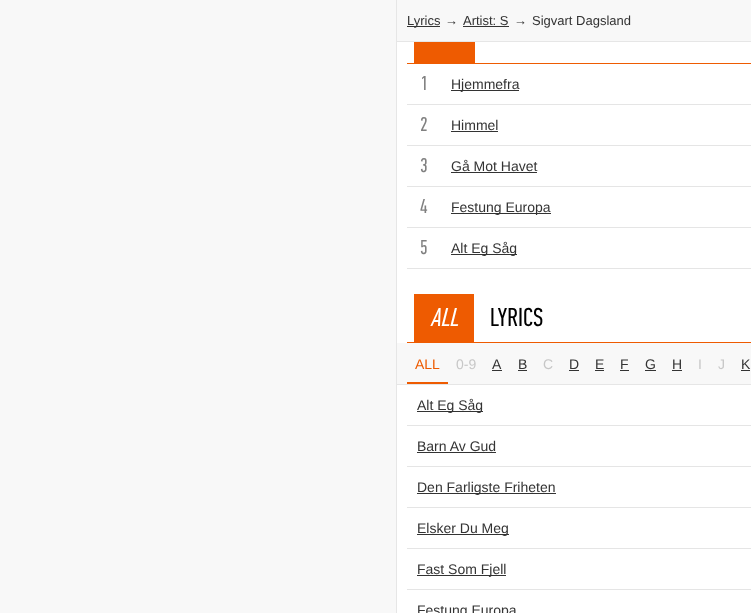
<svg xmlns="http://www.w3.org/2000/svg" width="751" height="613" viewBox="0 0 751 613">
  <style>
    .t1 { font: 13px Liberation Sans; fill: #333; }
    .t2 { font: 20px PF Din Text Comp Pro; fill: #808080; }
    .t3 { font: 14px Liberation Sans; fill: #333; }
    .t4 { font: italic 26px PF Din Text Comp Pro; fill: #fff; }
    .t5 { font: 26px PF Din Text Comp Pro; fill: #000; }
    .t6 { font: 14px Liberation Sans; fill: #ee5b01; }
    .t7 { font: 14px Liberation Sans; fill: #c7c7c7; }
  </style>
  <rect width="100%" height="100%" fill="#fff"/>
  <rect x="0" y="0" width="396" height="613" fill="#f8f8f8"/>
  <rect x="396" y="0" width="1" height="613" fill="#e6e6e6"/>
  <rect x="397" y="0" width="354" height="41" fill="#f8f8f8"/>
  <rect x="397" y="41" width="354" height="1" fill="#e6e6e6"/>
  <rect x="407" y="26" width="33" height="1" fill="#333"/>
  <text x="407" y="25" class="t1">Lyrics</text>
  <text x="445" y="25" class="t1">→</text>
  <text x="463" y="25" class="t1">Artist: S</text>
  <rect x="463" y="26" width="46" height="1" fill="#333"/>
  <text x="514" y="25" class="t1">→</text>
  <text x="532" y="25" class="t1">Sigvart Dagsland</text>
  <rect x="407" y="63" width="344" height="1" fill="#ee5b01"/>
  <rect x="414" y="42" width="61" height="21" fill="#ee5b01"/>
  <rect x="407" y="104" width="344" height="1" fill="#e5e5e5"/>
  <text x="420" y="90" class="t2">1</text>
  <rect x="451" y="90" width="68" height="1" fill="#333"/>
  <text x="451" y="89" class="t3">Hjemmefra</text>
  <rect x="407" y="145" width="344" height="1" fill="#e5e5e5"/>
  <text x="420" y="131" class="t2">2</text>
  <text x="451" y="130" class="t3">Himmel</text>
  <rect x="451" y="131" width="47" height="1" fill="#333"/>
  <rect x="407" y="186" width="344" height="1" fill="#e5e5e5"/>
  <text x="420" y="172" class="t2">3</text>
  <text x="451" y="171" class="t3">Gå Mot Havet</text>
  <rect x="451" y="172" width="86" height="1" fill="#333"/>
  <rect x="407" y="227" width="344" height="1" fill="#e5e5e5"/>
  <text x="420" y="213" class="t2">4</text>
  <rect x="451" y="213" width="100" height="1" fill="#333"/>
  <text x="451" y="212" class="t3">Festung Europa</text>
  <rect x="407" y="268" width="344" height="1" fill="#e5e5e5"/>
  <text x="420" y="254" class="t2">5</text>
  <rect x="451" y="254" width="66" height="1" fill="#333"/>
  <text x="451" y="253" class="t3">Alt Eg Såg</text>
  <rect x="407" y="342" width="344" height="1" fill="#ee5b01"/>
  <rect x="414" y="294" width="60" height="48" fill="#ee5b01"/>
  <text x="430" y="326" class="t4">ALL</text>
  <text x="490" y="326" class="t5">LYRICS</text>
  <rect x="397" y="343" width="354" height="41" fill="#f8f8f8"/>
  <rect x="397" y="384" width="354" height="1" fill="#e6e6e6"/>
  <text x="415" y="369" class="t6">ALL</text>
  <rect x="407" y="382" width="41" height="2" fill="#ee5b01"/>
  <text x="456" y="369" class="t7">0-9</text>
  <text x="492" y="369" class="t3">A</text>
  <rect x="492" y="370" width="10" height="1" fill="#333"/>
  <text x="518" y="369" class="t3">B</text>
  <rect x="518" y="370" width="9" height="1" fill="#333"/>
  <text x="543" y="369" class="t7">C</text>
  <text x="569" y="369" class="t3">D</text>
  <rect x="569" y="370" width="10" height="1" fill="#333"/>
  <text x="595" y="369" class="t3">E</text>
  <rect x="595" y="370" width="9" height="1" fill="#333"/>
  <text x="620" y="369" class="t3">F</text>
  <rect x="620" y="370" width="9" height="1" fill="#333"/>
  <text x="645" y="369" class="t3">G</text>
  <rect x="645" y="370" width="11" height="1" fill="#333"/>
  <text x="672" y="369" class="t3">H</text>
  <rect x="672" y="370" width="10" height="1" fill="#333"/>
  <text x="698" y="369" class="t7">I</text>
  <text x="718" y="369" class="t7">J</text>
  <text x="741" y="369" class="t3">K</text>
  <rect x="741" y="370" width="9" height="1" fill="#333"/>
  <rect x="407" y="425" width="344" height="1" fill="#e5e5e5"/>
  <rect x="417" y="411" width="66" height="1" fill="#333"/>
  <text x="417" y="410" class="t3">Alt Eg Såg</text>
  <rect x="407" y="466" width="344" height="1" fill="#e5e5e5"/>
  <text x="417" y="451" class="t3">Barn Av Gud</text>
  <rect x="417" y="452" width="79" height="1" fill="#333"/>
  <rect x="407" y="507" width="344" height="1" fill="#e5e5e5"/>
  <rect x="417" y="493" width="139" height="1" fill="#333"/>
  <text x="417" y="492" class="t3">Den Farligste Friheten</text>
  <rect x="407" y="548" width="344" height="1" fill="#e5e5e5"/>
  <rect x="417" y="534" width="92" height="1" fill="#333"/>
  <text x="417" y="533" class="t3">Elsker Du Meg</text>
  <rect x="407" y="589" width="344" height="1" fill="#e5e5e5"/>
  <rect x="417" y="575" width="89" height="1" fill="#333"/>
  <text x="417" y="574" class="t3">Fast Som Fjell</text>
  <text x="417" y="615" class="t3">Festung Europa</text>
</svg>
